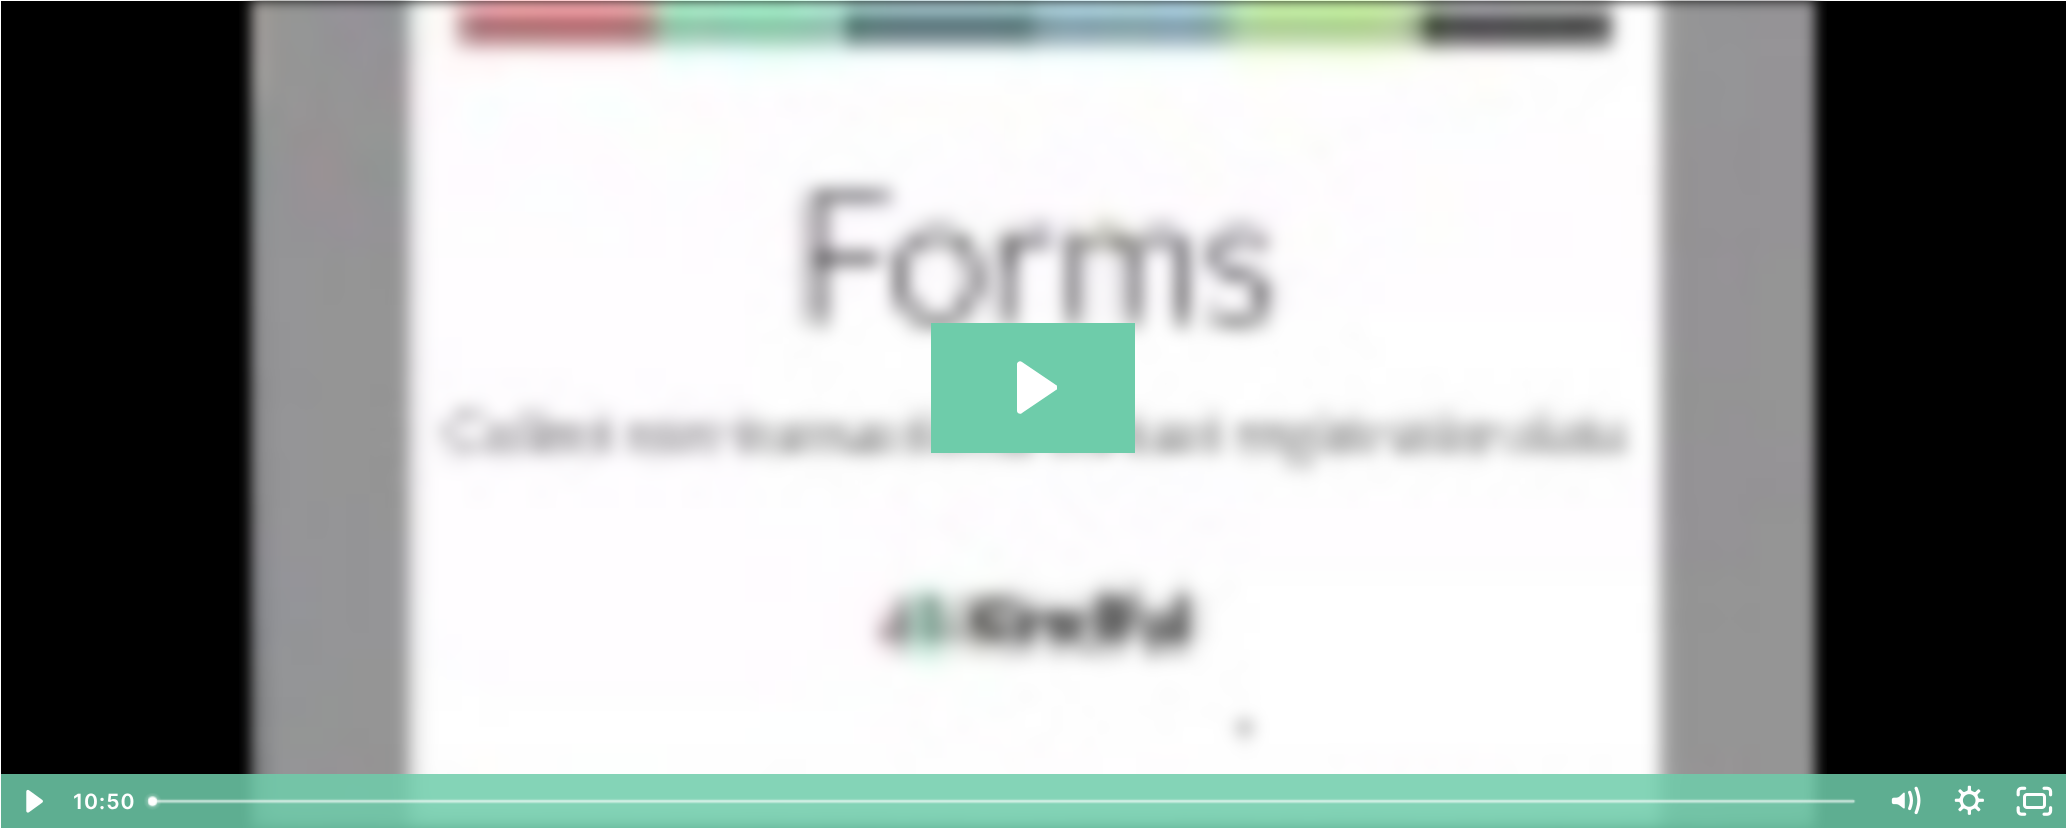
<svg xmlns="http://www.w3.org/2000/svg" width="2066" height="828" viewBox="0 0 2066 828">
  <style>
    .t1 { font: 600 21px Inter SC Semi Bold; letter-spacing: 1px; fill: #fff; }
  </style>
  <rect width="100%" height="100%" fill="#fff"/>
  <image x="241" y="0" width="1585" height="1" href="images/1.png"/>
  <rect x="1" y="1" width="2065" height="827" fill="#000"/>
  <image x="239" y="0" width="1588" height="828" href="images/2.png"/>
  <rect x="931" y="323" width="204" height="130" fill="#6eccaa"/>
  <path d="M1022 362C1020 360 1017 362 1017 364V411C1017 413 1020 415 1022 413L1056 390C1057 390 1057 389 1057 388C1057 386 1057 385 1056 385Z" fill="#fff" fill-rule="evenodd"/>
  <rect x="1" y="774" width="2065" height="54" fill="#6eccaad9"/>
  <image x="26" y="789" width="17" height="24" href="images/3.png"/>
  <text x="73" y="809" class="t1">10:50</text>
  <image x="144" y="793" width="1712" height="17" href="images/4.png"/>
  <image x="1891" y="786" width="30" height="29" href="images/5.png"/>
  <image x="1954" y="785" width="30" height="30" href="images/6.png"/>
  <image x="2016" y="786" width="37" height="30" href="images/7.png"/>
</svg>
